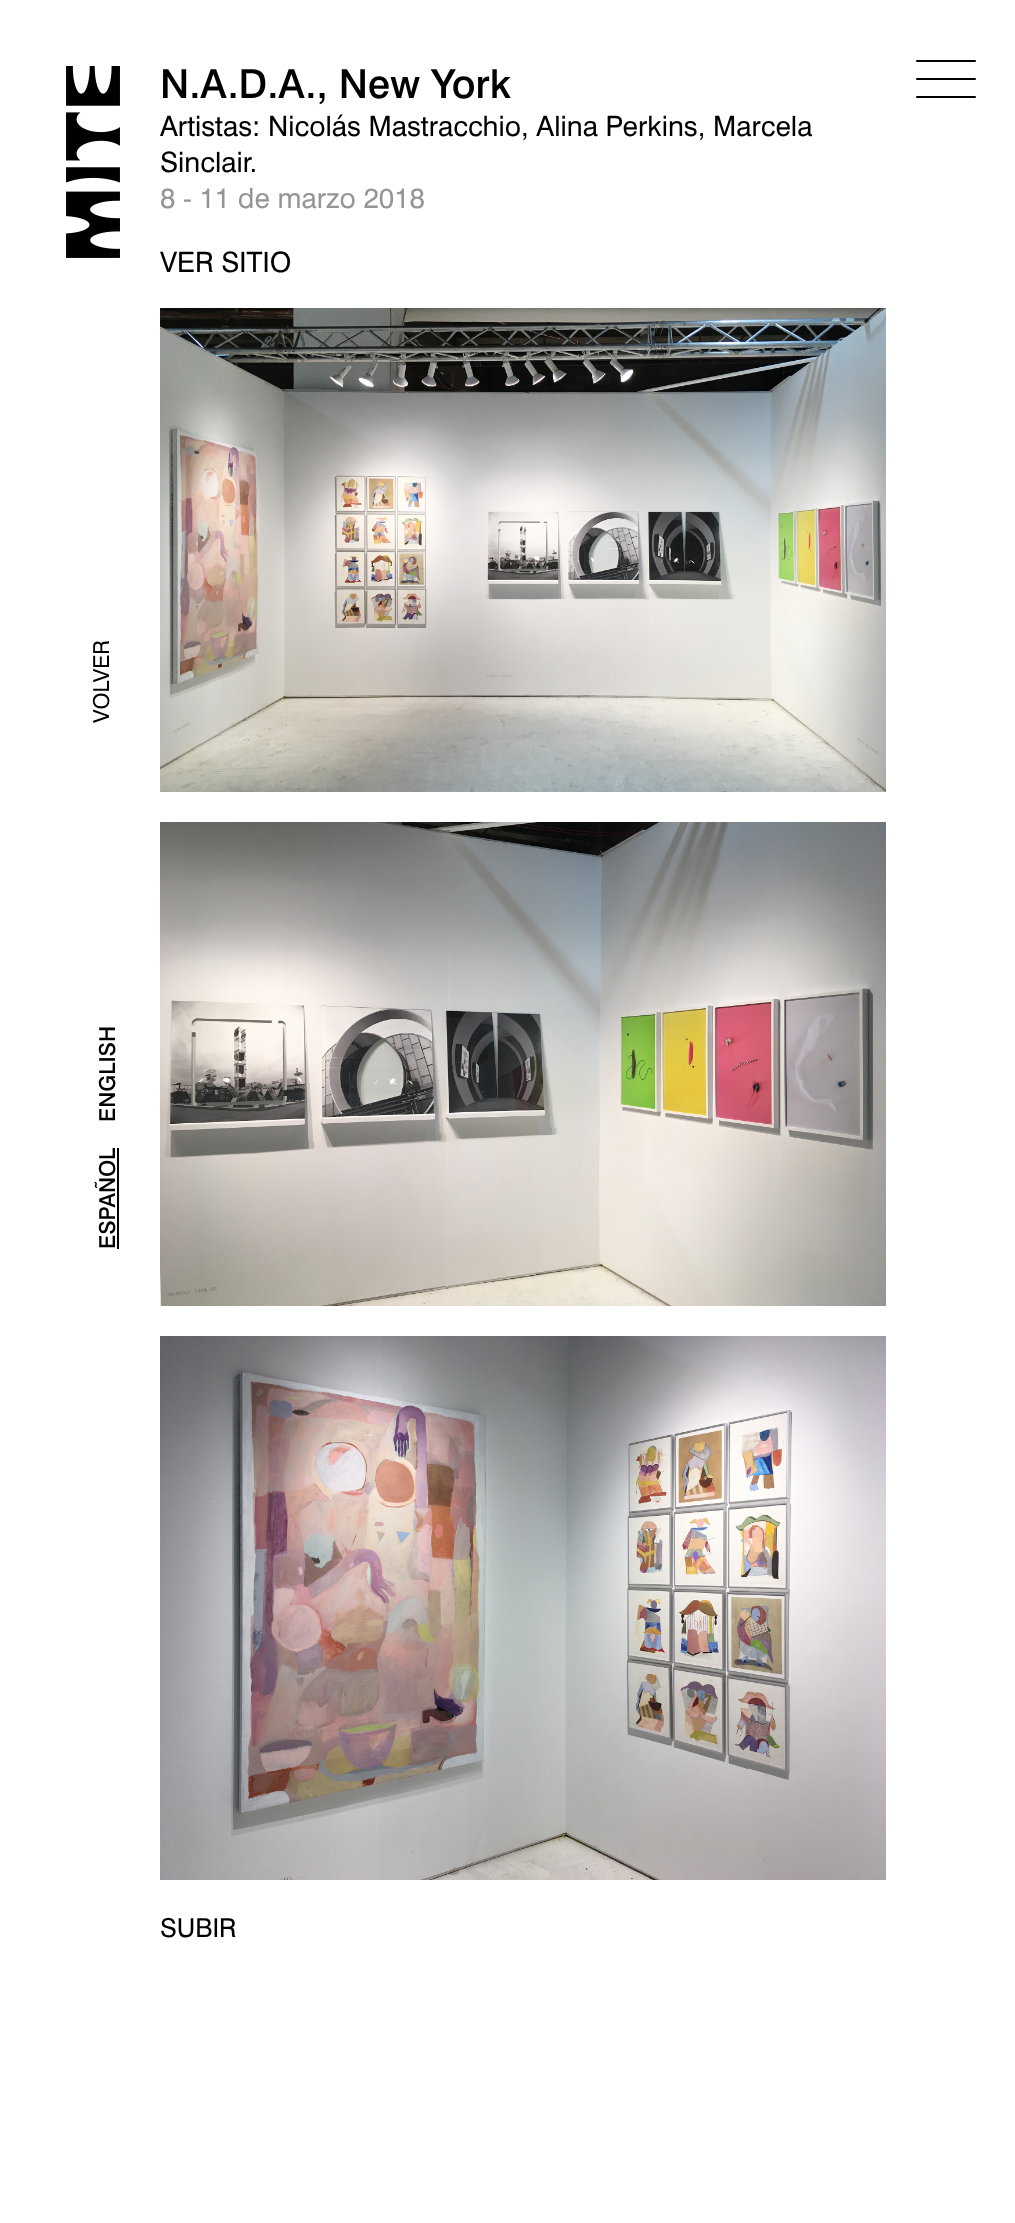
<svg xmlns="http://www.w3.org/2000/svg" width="1015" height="2223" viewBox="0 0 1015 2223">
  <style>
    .t1 { font: 500 40px 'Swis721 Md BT'; fill: #000; }
    .t2 { font: 28px 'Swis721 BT'; fill: #000; }
    .t3 { font: 28px 'Swis721 BT'; fill: #939598; }
    .t4 { font: 22px 'Swis721 BT'; fill: #000; }
    .t5 { font: 26px 'Swis721 BT'; fill: #000; }
    .t6 { font: 500 22px 'Swis721 Md BT'; fill: #000; }
  </style>
  <rect width="100%" height="100%" fill="#fff"/>
  <image x="66" y="66" width="54" height="192" href="images/1.png"/>
  <rect x="916" y="60" width="60" height="2" rx="1" fill="#000"/>
  <rect x="916" y="78" width="60" height="2" rx="1" fill="#000"/>
  <rect x="916" y="96" width="60" height="2" rx="1" fill="#000"/>
  <text x="160" y="98" class="t1">N.A.D.A., New York</text>
  <text x="160" y="136" class="t2">Artistas: Nicolás Mastracchio, Alina Perkins, Marcela</text>
  <text x="160" y="172" class="t2">Sinclair.</text>
  <text x="160" y="208" class="t3">8 - 11 de marzo 2018</text>
  <text x="160" y="272" class="t2">VER SITIO</text>
  <text x="109" y="723" transform="rotate(-90 109 723)" class="t4">VOLVER</text>
  <image x="160" y="308" width="726" height="484" href="images/2.png"/>
  <image x="160" y="822" width="726" height="484" href="images/3.png"/>
  <image x="160" y="1336" width="726" height="544" href="images/4.png"/>
  <text x="160" y="1937" class="t5">SUBIR</text>
  <text x="115" y="1122" transform="rotate(-90 115 1122)" class="t6">ENGLISH</text>
  <text x="115" y="1249" transform="rotate(-90 115 1249)" class="t6">ESPAÑOL</text>
  <rect x="117" y="1148" width="2" height="101" fill="#000"/>
</svg>
